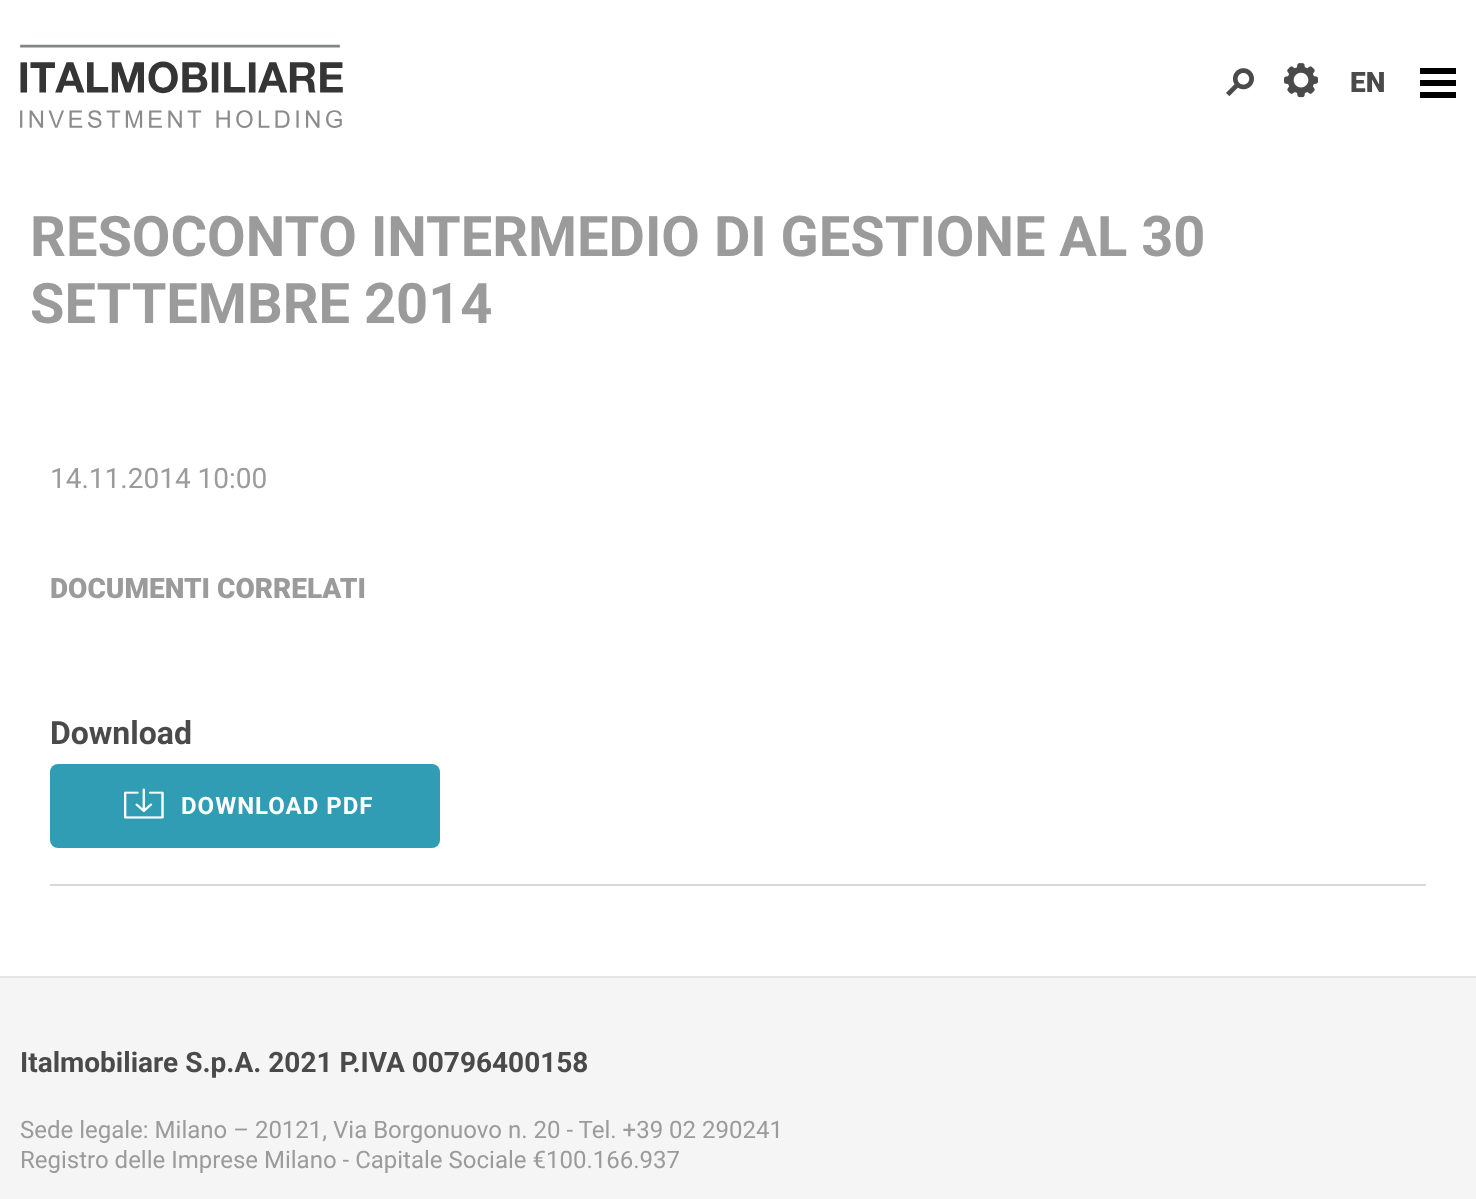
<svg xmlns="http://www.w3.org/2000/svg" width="1476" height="1199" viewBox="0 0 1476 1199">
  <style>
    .t1 { font: 900 28px Roboto; fill: #4a4a4a; }
    .t2 { font: bold 56px Roboto; fill: #9b9b9b; }
    .t3 { font: 28px Roboto; fill: #9b9b9b; }
    .t4 { font: 900 28px Roboto; fill: #9b9b9b; }
    .t5 { font: bold 32px Roboto; fill: #4a4a4a; }
    .t6 { font: bold 24px Roboto; letter-spacing: 1px; fill: #fff; }
    .t7 { font: bold 28px Roboto; fill: #4a4a4a; }
    .t8 { font: 24px Roboto; fill: #9b9b9b; }
  </style>
  <rect width="100%" height="100%" fill="#fff"/>
  <image x="20" y="44" width="323" height="84" href="images/1.png"/>
  <image x="1226" y="68" width="28" height="29" href="images/2.png"/>
  <image x="1284" y="63" width="34" height="35" href="images/3.png"/>
  <text x="1350" y="92" class="t1">EN</text>
  <rect x="1420" y="80" width="36" height="6" fill="#000"/>
  <rect x="1420" y="68" width="36" height="6" fill="#000"/>
  <rect x="1420" y="92" width="36" height="6" fill="#000"/>
  <text x="30" y="256" class="t2">RESOCONTO INTERMEDIO DI GESTIONE AL 30</text>
  <text x="30" y="323" class="t2">SETTEMBRE 2014</text>
  <text x="50" y="488" class="t3">14.11.2014 10:00</text>
  <text x="50" y="598" class="t4">DOCUMENTI CORRELATI</text>
  <rect x="50" y="884" width="1376" height="2" fill="#d9d9d9"/>
  <text x="50" y="744" class="t5">Download</text>
  <rect x="50" y="764" width="390" height="84" rx="8" fill="#319db5"/>
  <image x="124" y="788" width="40" height="31" href="images/4.png"/>
  <text x="181" y="814" class="t6">DOWNLOAD PDF</text>
  <rect x="0" y="978" width="1476" height="221" fill="#f6f5f5"/>
  <rect x="0" y="976" width="1476" height="2" fill="#e5e5e5"/>
  <text x="20" y="1072" class="t7">Italmobiliare S.p.A. 2021 P.IVA 00796400158</text>
  <text x="20" y="1138" class="t8">Sede legale: Milano – 20121, Via Borgonuovo n. 20 - Tel. +39 02 290241</text>
  <text x="20" y="1168" class="t8">Registro delle Imprese Milano - Capitale Sociale €100.166.937</text>
</svg>
